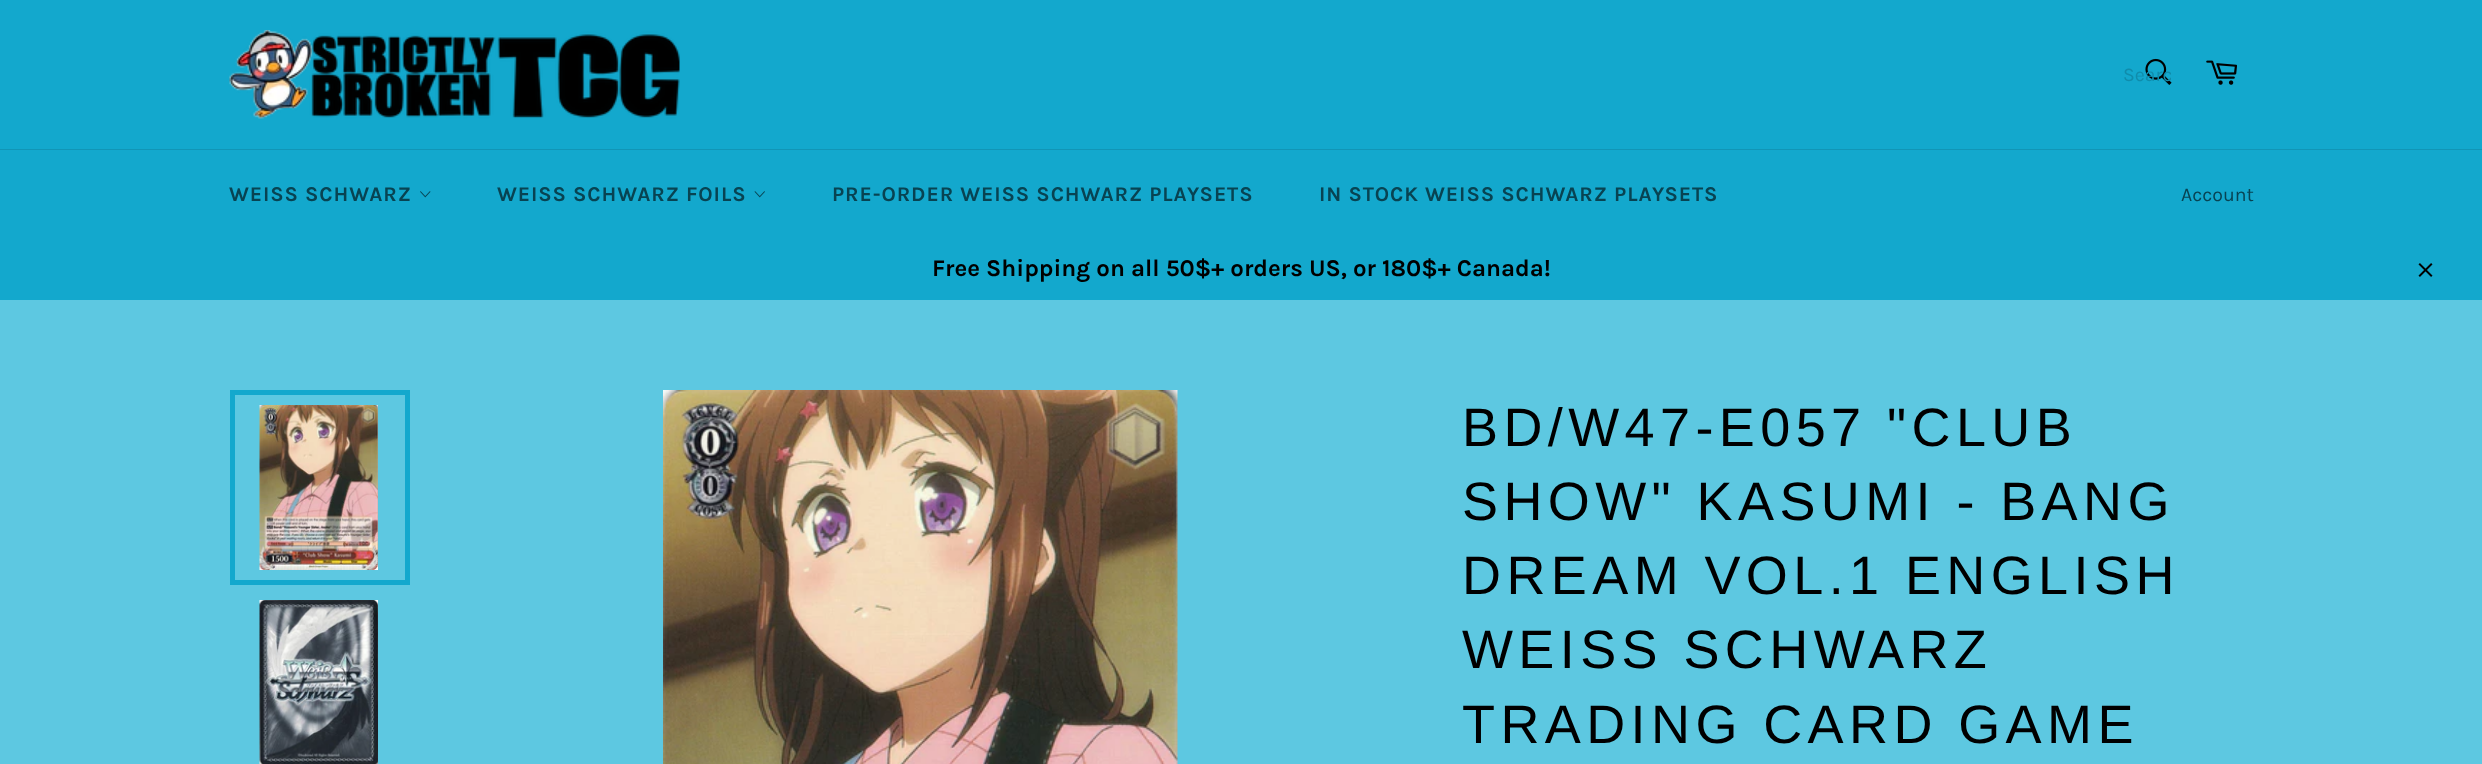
<svg xmlns="http://www.w3.org/2000/svg" width="2482" height="764" viewBox="0 0 2482 764">
  <style>
    .t1 { font: 19.5px Karla; fill: #108cab; }
    .t2 { font: bold 21px Karla; letter-spacing: 0.9px; fill: #084352; }
    .t3 { font: 19.5px Karla; fill: #084352; }
    .t4 { font: bold 24px Karla; fill: #000; }
    .t5 { font: 54px Arimo; letter-spacing: 5.4px; fill: #000; }
  </style>
  <defs>
    <clipPath id="clip1"><rect x="2123" y="63" width="48" height="23"/></clipPath>
  </defs>
  <rect width="100%" height="100%" fill="#13a8cd"/>
  <image x="229" y="30" width="451" height="89" href="images/1.png"/>
  <image x="2145" y="58" width="27" height="27" href="images/2.png"/>
  <g clip-path="url(#clip1)">
    <text x="2123" y="81" class="t1">Searc</text>
  </g>
  <image x="2206" y="60" width="31" height="25" href="images/3.png"/>
  <rect x="0" y="149" width="2482" height="1" fill="#1195b6"/>
  <text x="229" y="201" class="t2">WEISS SCHWARZ</text>
  <image x="420" y="191" width="11" height="7" href="images/4.png"/>
  <text x="497" y="201" class="t2">WEISS SCHWARZ FOILS</text>
  <image x="754" y="191" width="11" height="7" href="images/5.png"/>
  <text x="832" y="201" class="t2">PRE-ORDER WEISS SCHWARZ PLAYSETS</text>
  <text x="1319" y="201" class="t2">IN STOCK WEISS SCHWARZ PLAYSETS</text>
  <text x="2181" y="201" class="t3">Account</text>
  <text x="932" y="276" class="t4">Free Shipping on all 50$+ orders US, or 180$+ Canada!</text>
  <image x="2418" y="263" width="15" height="14" href="images/6.png"/>
  <rect x="0" y="300" width="2482" height="464" fill="#5dc8e1"/>
  <image x="259" y="405" width="119" height="165" href="images/7.png"/>
  <rect x="232.5" y="392.5" width="175" height="190" fill="none" stroke="#13a8cd" stroke-width="5"/>
  <image x="259" y="600" width="119" height="164" href="images/8.png"/>
  <image x="663" y="390" width="515" height="374" href="images/9.png"/>
  <text x="1462" y="446" class="t5">BD/W47-E057 "CLUB</text>
  <text x="1462" y="520" class="t5">SHOW" KASUMI - BANG</text>
  <text x="1462" y="594" class="t5">DREAM VOL.1 ENGLISH</text>
  <text x="1462" y="668" class="t5">WEISS SCHWARZ</text>
  <text x="1462" y="743" class="t5">TRADING CARD GAME</text>
</svg>
